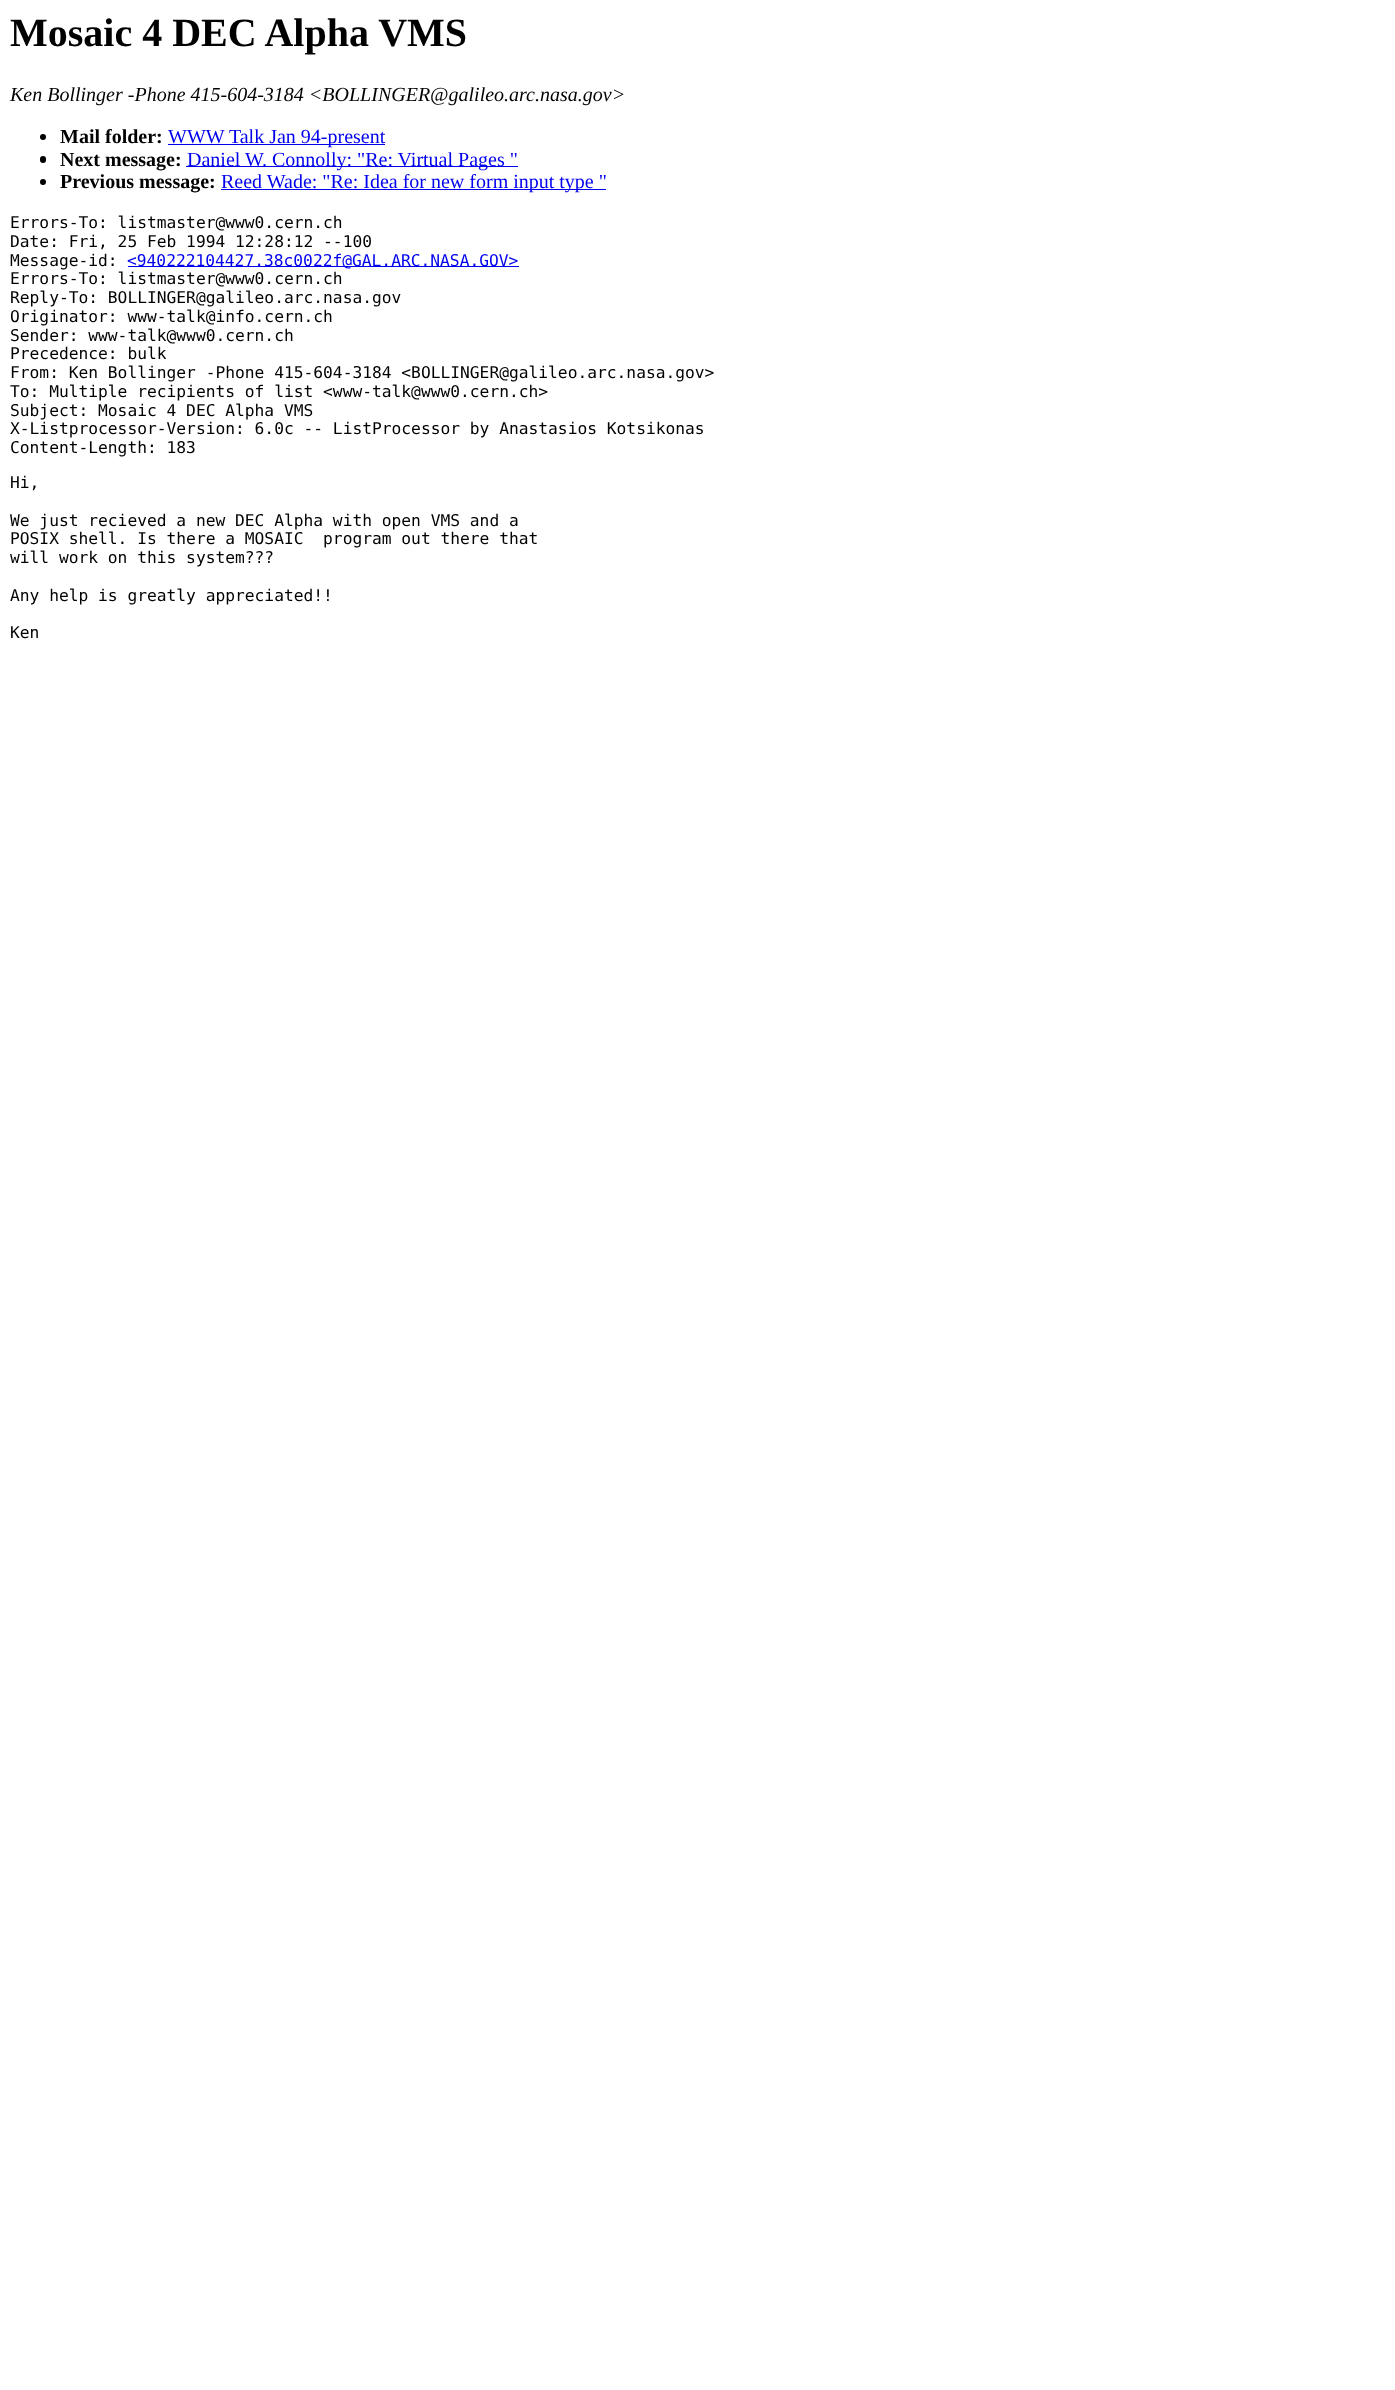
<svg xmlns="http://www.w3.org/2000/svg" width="1395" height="2390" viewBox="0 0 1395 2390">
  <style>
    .t1 { font: bold 40px Liberation Serif; fill: #000; }
    .t2 { font: italic 20px Liberation Serif; fill: #000; }
    .t3 { font: bold 20px Liberation Serif; fill: #000; }
    .t4 { font: 20px Liberation Serif; fill: #00e; }
    .t5 { font: 16.25px DejaVu Sans Mono; fill: #000; }
    .t6 { font: 16.25px DejaVu Sans Mono; fill: #00e; }
  </style>
  <rect width="100%" height="100%" fill="#fff"/>
  <text x="10" y="46" class="t1">Mosaic 4 DEC Alpha VMS</text>
  <text x="10" y="101" class="t2">Ken Bollinger -Phone 415-604-3184 &lt;BOLLINGER@galileo.arc.nasa.gov&gt;</text>
  <circle cx="43" cy="137" r="3" fill="#000"/>
  <text x="60" y="143" class="t3">Mail folder:</text>
  <rect x="168" y="144" width="217" height="1" fill="#00e"/>
  <text x="168" y="143" class="t4">WWW Talk Jan 94-present</text>
  <rect x="40" y="156" width="6" height="7" rx="3" fill="#000"/>
  <text x="60" y="166" class="t3">Next message:</text>
  <rect x="186" y="166" width="332" height="1" fill="#00e"/>
  <text x="187" y="166" class="t4">Daniel W. Connolly: "Re: Virtual Pages "</text>
  <circle cx="43" cy="182" r="3" fill="#000"/>
  <text x="60" y="188" class="t3">Previous message:</text>
  <rect x="221" y="189" width="385" height="1" fill="#00e"/>
  <text x="221" y="188" class="t4">Reed Wade: "Re: Idea for new form input type "</text>
  <text x="10" y="228" class="t5">Errors-To: listmaster@www0.cern.ch</text>
  <text x="10" y="247" class="t5">Date: Fri, 25 Feb 1994 12:28:12 --100</text>
  <text x="10" y="266" class="t5">Message-id:</text>
  <rect x="128" y="266" width="391" height="1" fill="#00e"/>
  <text x="127" y="266" class="t6">&lt;940222104427.38c0022f@GAL.ARC.NASA.GOV&gt;</text>
  <text x="10" y="284" class="t5">Errors-To: listmaster@www0.cern.ch</text>
  <text x="10" y="303" class="t5">Reply-To: BOLLINGER@galileo.arc.nasa.gov</text>
  <text x="10" y="322" class="t5">Originator: www-talk@info.cern.ch</text>
  <text x="10" y="341" class="t5">Sender: www-talk@www0.cern.ch</text>
  <text x="10" y="359" class="t5">Precedence: bulk</text>
  <text x="10" y="378" class="t5">From: Ken Bollinger -Phone 415-604-3184 &lt;BOLLINGER@galileo.arc.nasa.gov&gt;</text>
  <text x="10" y="397" class="t5">To: Multiple recipients of list &lt;www-talk@www0.cern.ch&gt;</text>
  <text x="10" y="416" class="t5">Subject: Mosaic 4 DEC Alpha VMS</text>
  <text x="10" y="434" class="t5">X-Listprocessor-Version: 6.0c -- ListProcessor by Anastasios Kotsikonas</text>
  <text x="10" y="453" class="t5">Content-Length: 183</text>
  <text x="10" y="488" class="t5">Hi,</text>
  <text x="10" y="526" class="t5">We just recieved a new DEC Alpha with open VMS and a</text>
  <text x="10" y="544" class="t5" xml:space="preserve">POSIX shell. Is there a MOSAIC  program out there that</text>
  <text x="10" y="563" class="t5">will work on this system???</text>
  <text x="10" y="601" class="t5">Any help is greatly appreciated!!</text>
  <text x="10" y="638" class="t5">Ken</text>
</svg>
